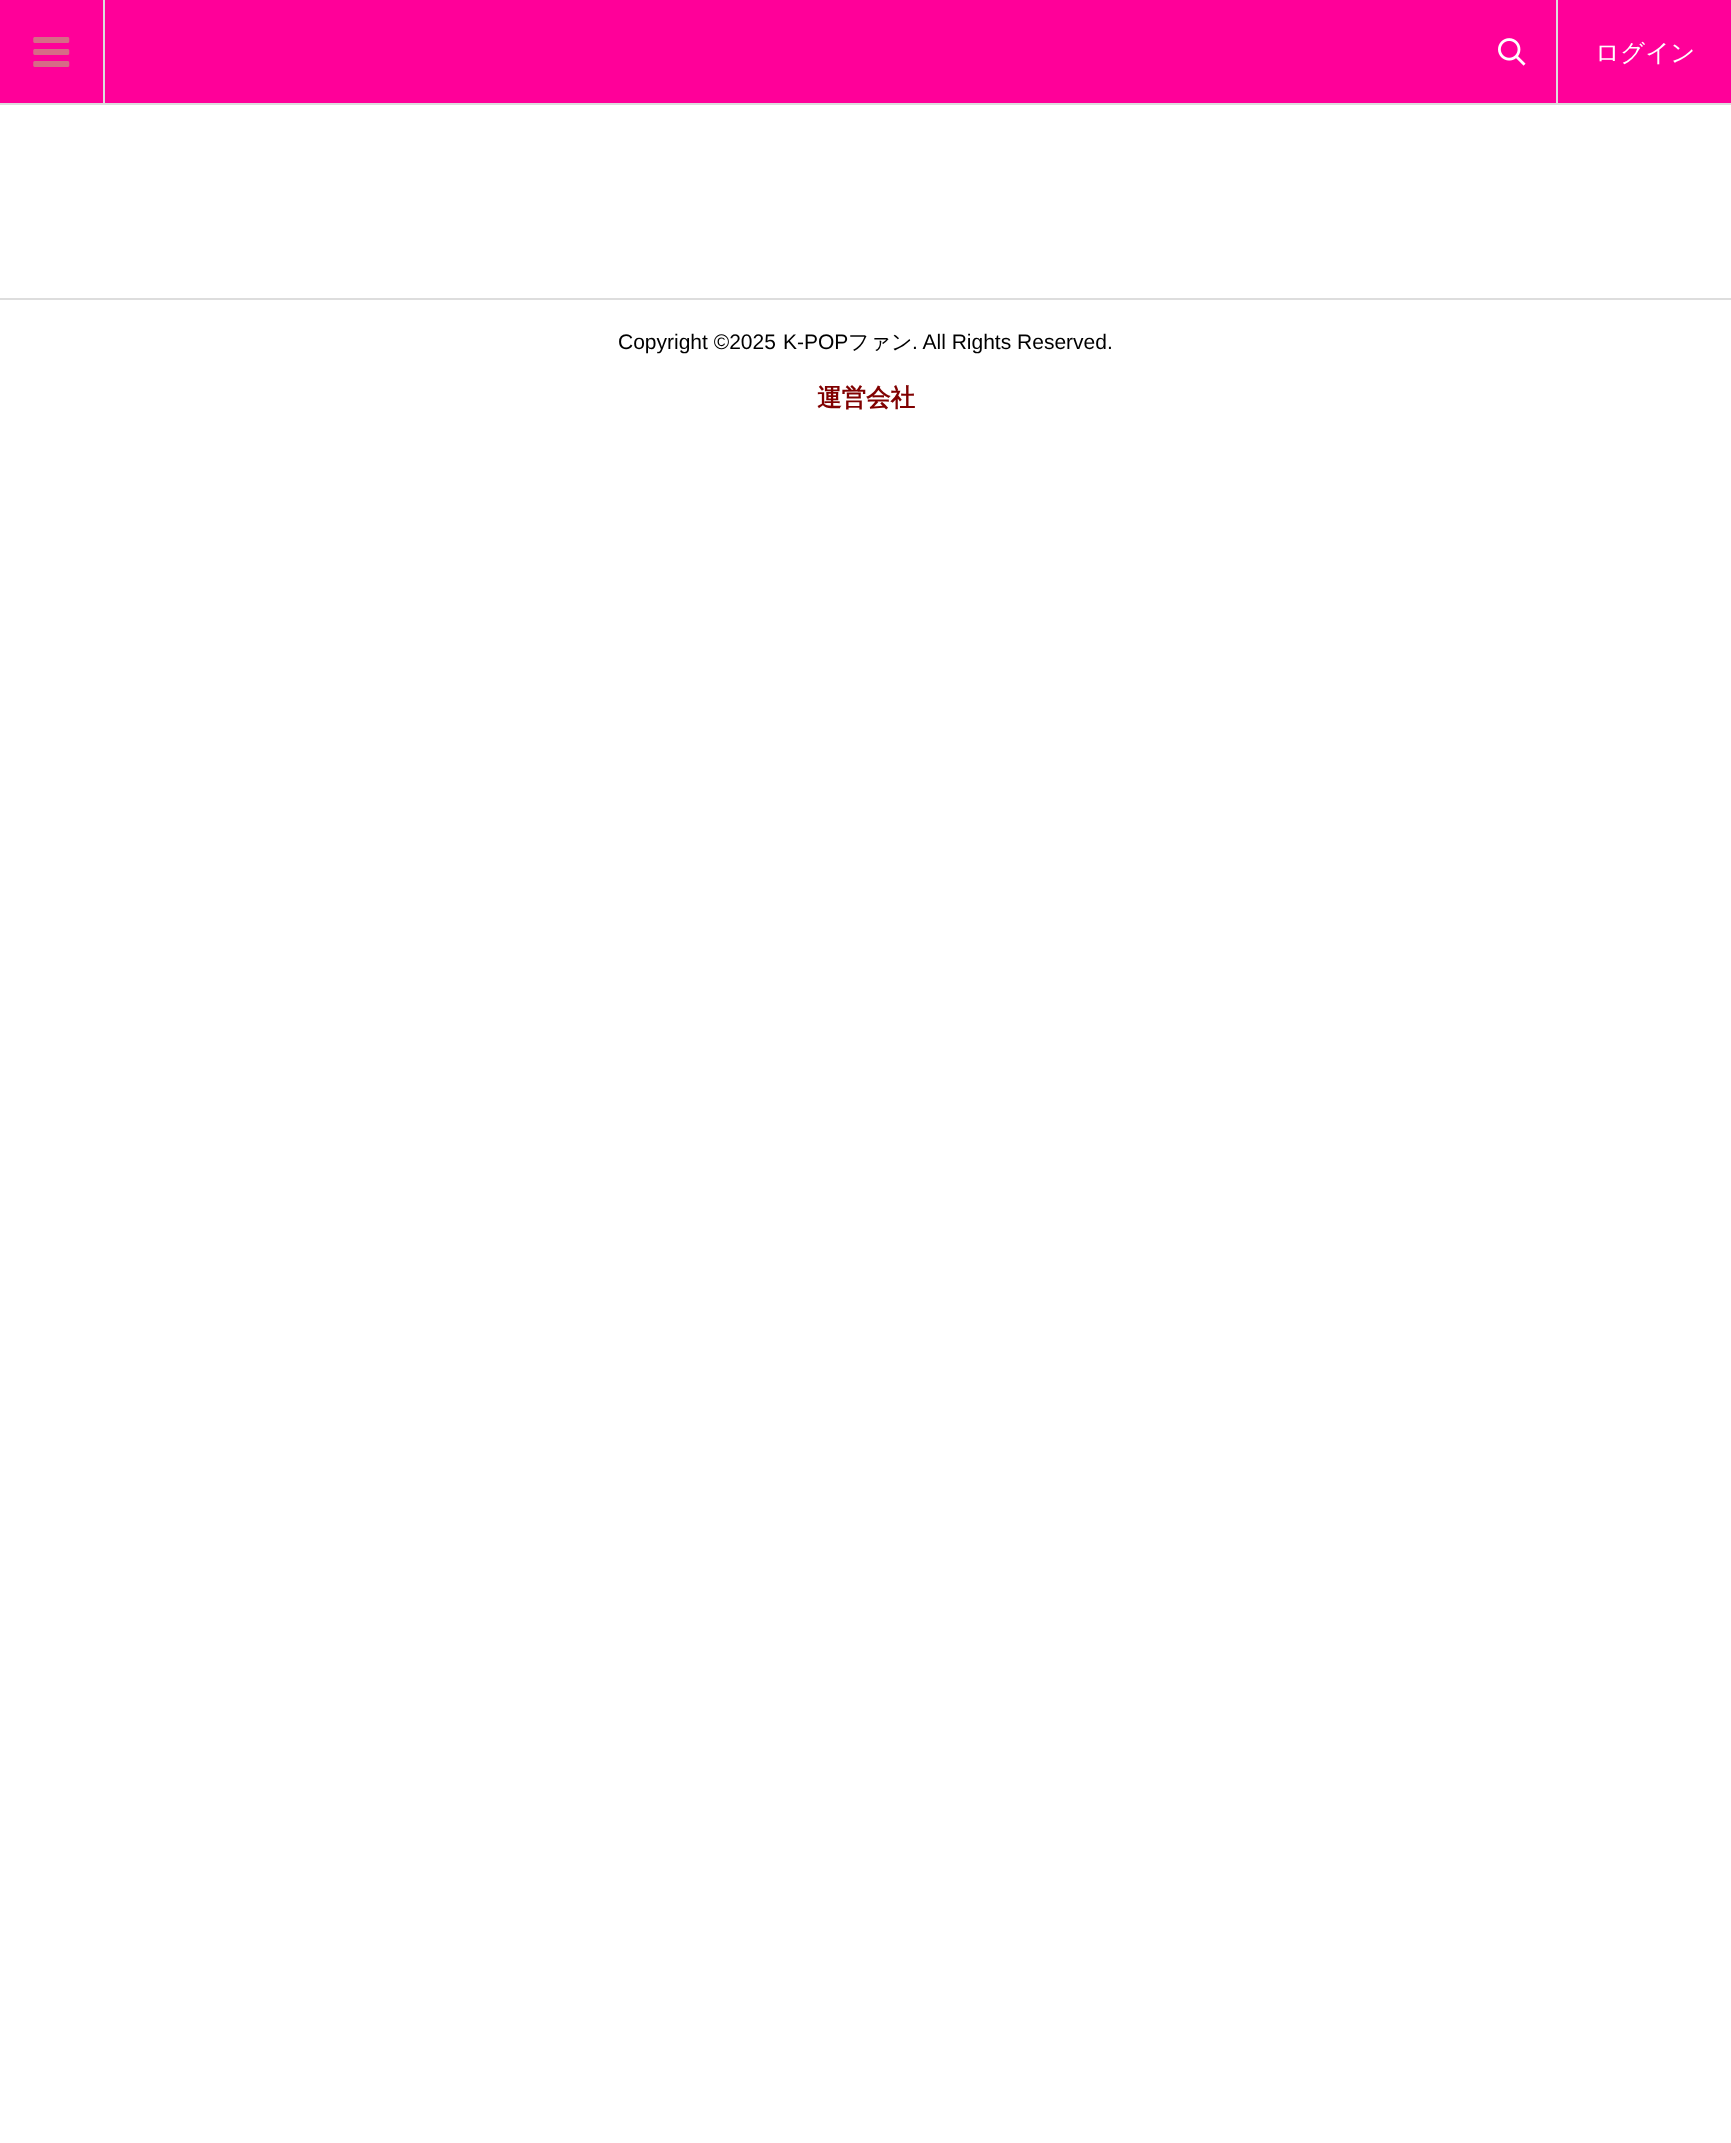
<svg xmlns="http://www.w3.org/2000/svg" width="1731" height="2143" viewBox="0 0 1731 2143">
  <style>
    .t1 { font: 500 24.5px WenQuanYi Zen Hei; fill: #fff; }
    .t2 { font: 21px Liberation Sans; fill: #000; }
    .t3 { font: 500 21px WenQuanYi Zen Hei; fill: #000; }
    .t4 { font: bold 24.5px WenQuanYi Zen Hei; fill: #800000; }
  </style>
  <rect width="100%" height="100%" fill="#fff"/>
  <rect x="0" y="0" width="1731" height="103" fill="#f09"/>
  <rect x="103" y="0" width="2" height="105" fill="#ddd"/>
  <image x="33" y="37" width="37" height="30" href="images/1.png"/>
  <image x="1498" y="38" width="28" height="28" href="images/2.png"/>
  <rect x="1556" y="0" width="2" height="105" fill="#ddd"/>
  <rect x="0" y="103" width="1731" height="2" fill="#ddd"/>
  <text x="1595" y="61" class="t1">ログイン</text>
  <rect x="0" y="298" width="1731" height="2" fill="#ddd"/>
  <text x="618" y="349" class="t2">Copyright ©2025</text>
  <text x="783" y="349" class="t2">K-POP</text>
  <text x="848" y="349" class="t3">ファン</text>
  <text x="912" y="349" class="t2">. All Rights Reserved.</text>
  <text x="817" y="406" class="t4">運営会社</text>
</svg>
